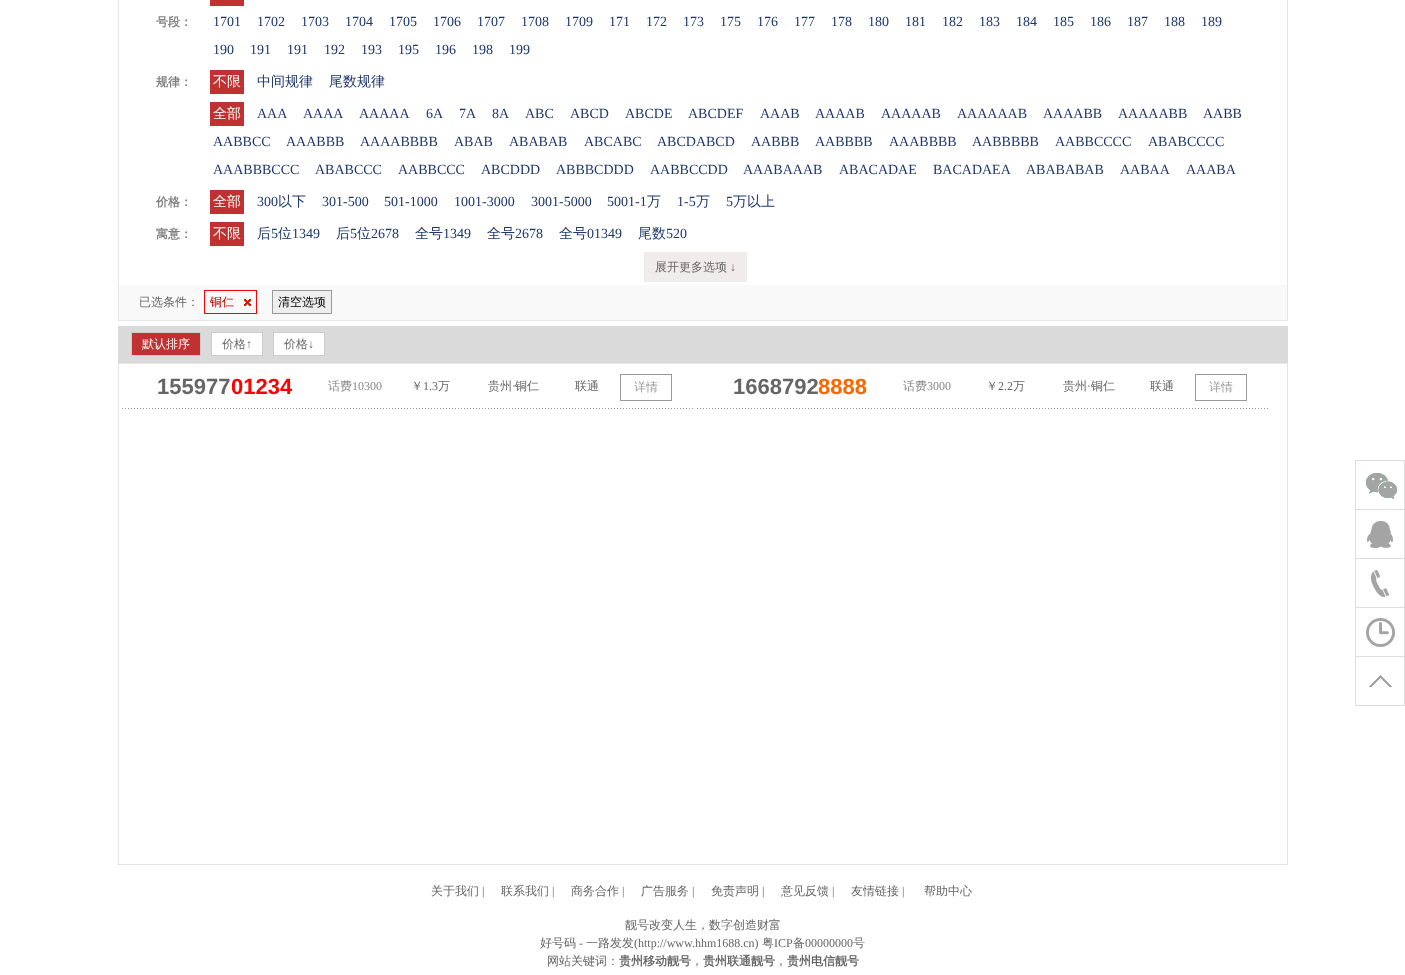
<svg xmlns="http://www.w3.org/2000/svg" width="1405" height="975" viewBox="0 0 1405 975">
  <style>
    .t1 { font: bold 12px WenQuanYi Zen Hei; fill: #808080; }
    .t2 { font: 14px Liberation Serif; fill: #1f376d; }
    .t3 { font: 500 14px WenQuanYi Zen Hei; fill: #fff; }
    .t4 { font: 500 14px WenQuanYi Zen Hei; fill: #1f376d; }
    .t5 { font: 500 12px WenQuanYi Zen Hei; fill: #666; }
    .t6 { font: 12px Liberation Serif; fill: #666; }
    .t7 { font: 500 12px WenQuanYi Zen Hei; fill: #c40000; }
    .t8 { font: 500 12px WenQuanYi Zen Hei; fill: #000; }
    .t9 { font: 500 12px WenQuanYi Zen Hei; fill: #fff; }
    .t10 { font: bold 22px Liberation Sans; fill: #666; }
    .t11 { font: bold 22px Liberation Sans; fill: #f00; }
    .t12 { font: 500 12px WenQuanYi Zen Hei; fill: #888; }
    .t13 { font: 12px Liberation Serif; fill: #888; }
    .t14 { font: 500 12px WenQuanYi Zen Hei; fill: #999; }
    .t15 { font: bold 22px Liberation Sans; fill: #f60; }
    .t16 { font: bold 12px WenQuanYi Zen Hei; fill: #666; }
  </style>
  <rect width="100%" height="100%" fill="#fff"/>
  <rect x="118.5" y="-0.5" width="1169" height="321" fill="none" stroke="#e7e3e7"/>
  <text x="156" y="26" class="t1">号段：</text>
  <rect x="210" y="0" width="34" height="6" fill="#c23131"/>
  <text x="213" y="26" class="t2">1701</text>
  <text x="257" y="26" class="t2">1702</text>
  <text x="301" y="26" class="t2">1703</text>
  <text x="345" y="26" class="t2">1704</text>
  <text x="389" y="26" class="t2">1705</text>
  <text x="433" y="26" class="t2">1706</text>
  <text x="477" y="26" class="t2">1707</text>
  <text x="521" y="26" class="t2">1708</text>
  <text x="565" y="26" class="t2">1709</text>
  <text x="609" y="26" class="t2">171</text>
  <text x="646" y="26" class="t2">172</text>
  <text x="683" y="26" class="t2">173</text>
  <text x="720" y="26" class="t2">175</text>
  <text x="757" y="26" class="t2">176</text>
  <text x="794" y="26" class="t2">177</text>
  <text x="831" y="26" class="t2">178</text>
  <text x="868" y="26" class="t2">180</text>
  <text x="905" y="26" class="t2">181</text>
  <text x="942" y="26" class="t2">182</text>
  <text x="979" y="26" class="t2">183</text>
  <text x="1016" y="26" class="t2">184</text>
  <text x="1053" y="26" class="t2">185</text>
  <text x="1090" y="26" class="t2">186</text>
  <text x="1127" y="26" class="t2">187</text>
  <text x="1164" y="26" class="t2">188</text>
  <text x="1201" y="26" class="t2">189</text>
  <text x="213" y="54" class="t2">190</text>
  <text x="250" y="54" class="t2">191</text>
  <text x="287" y="54" class="t2">191</text>
  <text x="324" y="54" class="t2">192</text>
  <text x="361" y="54" class="t2">193</text>
  <text x="398" y="54" class="t2">195</text>
  <text x="435" y="54" class="t2">196</text>
  <text x="472" y="54" class="t2">198</text>
  <text x="509" y="54" class="t2">199</text>
  <text x="156" y="86" class="t1">规律：</text>
  <rect x="210" y="70" width="34" height="24" fill="#c23131"/>
  <text x="213" y="86" class="t3">不限</text>
  <text x="257" y="86" class="t4">中间规律</text>
  <text x="329" y="86" class="t4">尾数规律</text>
  <rect x="210" y="102" width="34" height="24" fill="#c23131"/>
  <text x="213" y="118" class="t3">全部</text>
  <text x="257" y="118" class="t2">AAA</text>
  <text x="303" y="118" class="t2">AAAA</text>
  <text x="359" y="118" class="t2">AAAAA</text>
  <text x="426" y="118" class="t2">6A</text>
  <text x="459" y="118" class="t2">7A</text>
  <text x="492" y="118" class="t2">8A</text>
  <text x="525" y="118" class="t2">ABC</text>
  <text x="570" y="118" class="t2">ABCD</text>
  <text x="625" y="118" class="t2">ABCDE</text>
  <text x="688" y="118" class="t2">ABCDEF</text>
  <text x="760" y="118" class="t2">AAAB</text>
  <text x="815" y="118" class="t2">AAAAB</text>
  <text x="881" y="118" class="t2">AAAAAB</text>
  <text x="957" y="118" class="t2">AAAAAAB</text>
  <text x="1043" y="118" class="t2">AAAABB</text>
  <text x="1118" y="118" class="t2">AAAAABB</text>
  <text x="1203" y="118" class="t2">AABB</text>
  <text x="213" y="146" class="t2">AABBCC</text>
  <text x="286" y="146" class="t2">AAABBB</text>
  <text x="360" y="146" class="t2">AAAABBBB</text>
  <text x="454" y="146" class="t2">ABAB</text>
  <text x="509" y="146" class="t2">ABABAB</text>
  <text x="584" y="146" class="t2">ABCABC</text>
  <text x="657" y="146" class="t2">ABCDABCD</text>
  <text x="751" y="146" class="t2">AABBB</text>
  <text x="815" y="146" class="t2">AABBBB</text>
  <text x="889" y="146" class="t2">AAABBBB</text>
  <text x="972" y="146" class="t2">AABBBBB</text>
  <text x="1055" y="146" class="t2">AABBCCCC</text>
  <text x="1148" y="146" class="t2">ABABCCCC</text>
  <text x="213" y="174" class="t2">AAABBBCCC</text>
  <text x="315" y="174" class="t2">ABABCCC</text>
  <text x="398" y="174" class="t2">AABBCCC</text>
  <text x="481" y="174" class="t2">ABCDDD</text>
  <text x="556" y="174" class="t2">ABBBCDDD</text>
  <text x="650" y="174" class="t2">AABBCCDD</text>
  <text x="743" y="174" class="t2">AAABAAAB</text>
  <text x="839" y="174" class="t2">ABACADAE</text>
  <text x="933" y="174" class="t2">BACADAEA</text>
  <text x="1026" y="174" class="t2">ABABABAB</text>
  <text x="1120" y="174" class="t2">AABAA</text>
  <text x="1186" y="174" class="t2">AAABA</text>
  <text x="156" y="206" class="t1">价格：</text>
  <rect x="210" y="190" width="34" height="24" fill="#c23131"/>
  <text x="213" y="206" class="t3">全部</text>
  <text x="257" y="206" class="t2">300</text>
  <text x="278" y="206" class="t4">以下</text>
  <text x="322" y="206" class="t2">301-500</text>
  <text x="384" y="206" class="t2">501-1000</text>
  <text x="454" y="206" class="t2">1001-3000</text>
  <text x="531" y="206" class="t2">3001-5000</text>
  <text x="607" y="206" class="t2">5001-1</text>
  <text x="647" y="206" class="t4">万</text>
  <text x="677" y="206" class="t2">1-5</text>
  <text x="696" y="206" class="t4">万</text>
  <text x="726" y="206" class="t2">5</text>
  <text x="733" y="206" class="t4">万以上</text>
  <text x="156" y="238" class="t1">寓意：</text>
  <rect x="210" y="222" width="34" height="24" fill="#c23131"/>
  <text x="213" y="238" class="t3">不限</text>
  <text x="257" y="238" class="t4">后</text>
  <text x="271" y="238" class="t2">5</text>
  <text x="278" y="238" class="t4">位</text>
  <text x="292" y="238" class="t2">1349</text>
  <text x="336" y="238" class="t4">后</text>
  <text x="350" y="238" class="t2">5</text>
  <text x="357" y="238" class="t4">位</text>
  <text x="371" y="238" class="t2">2678</text>
  <text x="415" y="238" class="t4">全号</text>
  <text x="443" y="238" class="t2">1349</text>
  <text x="487" y="238" class="t4">全号</text>
  <text x="515" y="238" class="t2">2678</text>
  <text x="559" y="238" class="t4">全号</text>
  <text x="587" y="238" class="t2">01349</text>
  <text x="638" y="238" class="t4">尾数</text>
  <text x="666" y="238" class="t2">520</text>
  <rect x="644" y="252" width="103" height="30" fill="#efeceb"/>
  <text x="655" y="271" class="t5">展开更多选项</text>
  <text x="730" y="271" class="t6">↓</text>
  <rect x="119" y="285" width="1168" height="35" fill="#f9f9f9"/>
  <text x="139" y="306" class="t5">已选条件：</text>
  <rect x="204.5" y="290.5" width="52" height="23" fill="none" stroke="#f00"/>
  <text x="210" y="306" class="t7">铜仁</text>
  <image x="244" y="299" width="7" height="7" href="images/1.png"/>
  <rect x="272.5" y="290.5" width="59" height="23" fill="#eee" stroke="#999"/>
  <text x="278" y="306" class="t8">清空选项</text>
  <rect x="118" y="326" width="1170" height="37" fill="#dadada"/>
  <rect x="131.5" y="332.5" width="69" height="23" fill="#c23131" stroke="#ccc"/>
  <text x="142" y="348" class="t9">默认排序</text>
  <rect x="211.5" y="332.5" width="51" height="23" fill="#fff" stroke="#ccc"/>
  <text x="222" y="348" class="t5">价格</text>
  <text x="246" y="348" class="t6">↑</text>
  <rect x="273.5" y="332.5" width="51" height="23" fill="#fff" stroke="#ccc"/>
  <text x="284" y="348" class="t5">价格</text>
  <text x="308" y="348" class="t6">↓</text>
  <rect x="118.5" y="363.5" width="1169" height="501" fill="none" stroke="#e7e3e7"/>
  <image x="122" y="408" width="571" height="1" href="images/2.png"/>
  <text x="157" y="394" class="t10">155977</text>
  <text x="231" y="394" class="t11">01234</text>
  <text x="328" y="390" class="t12">话费</text>
  <text x="352" y="390" class="t13">10300</text>
  <text x="411" y="390" class="t5">￥</text>
  <text x="423" y="390" class="t6">1.3</text>
  <text x="438" y="390" class="t5">万</text>
  <text x="488" y="390" class="t5">贵州</text>
  <text x="512" y="390" class="t6">·</text>
  <text x="515" y="390" class="t5">铜仁</text>
  <text x="575" y="390" class="t5">联通</text>
  <rect x="620.5" y="374.5" width="51" height="26" fill="none" stroke="#999"/>
  <text x="634" y="391" class="t14">详情</text>
  <image x="697" y="408" width="571" height="1" href="images/2.png"/>
  <text x="733" y="394" class="t10">1668792</text>
  <text x="818" y="394" class="t15">8888</text>
  <text x="903" y="390" class="t12">话费</text>
  <text x="927" y="390" class="t13">3000</text>
  <text x="986" y="390" class="t5">￥</text>
  <text x="998" y="390" class="t6">2.2</text>
  <text x="1013" y="390" class="t5">万</text>
  <text x="1063" y="390" class="t5">贵州</text>
  <text x="1087" y="390" class="t6">·</text>
  <text x="1091" y="390" class="t5">铜仁</text>
  <text x="1150" y="390" class="t5">联通</text>
  <rect x="1195.5" y="374.5" width="51" height="26" fill="none" stroke="#999"/>
  <text x="1209" y="391" class="t14">详情</text>
  <image x="1366" y="473" width="31" height="26" href="images/3.png"/>
  <rect x="1355" y="460" width="50" height="1" fill="#ddd"/>
  <rect x="1404" y="460" width="1" height="49" fill="#ddd"/>
  <rect x="1355" y="460" width="1" height="49" fill="#ddd"/>
  <image x="1367" y="521" width="26" height="27" href="images/4.png"/>
  <rect x="1355" y="509" width="50" height="1" fill="#ddd"/>
  <rect x="1404" y="509" width="1" height="49" fill="#ddd"/>
  <rect x="1355" y="509" width="1" height="49" fill="#ddd"/>
  <image x="1371" y="570" width="18" height="27" href="images/5.png"/>
  <rect x="1355" y="558" width="50" height="1" fill="#ddd"/>
  <rect x="1404" y="558" width="1" height="49" fill="#ddd"/>
  <rect x="1355" y="558" width="1" height="49" fill="#ddd"/>
  <image x="1366" y="618" width="29" height="29" href="images/6.png"/>
  <rect x="1355" y="607" width="50" height="1" fill="#ddd"/>
  <rect x="1404" y="607" width="1" height="49" fill="#ddd"/>
  <rect x="1355" y="607" width="1" height="49" fill="#ddd"/>
  <image x="1369" y="675" width="23" height="12" href="images/7.png"/>
  <rect x="1355.5" y="656.5" width="49" height="49" fill="none" stroke="#ddd"/>
  <text x="431" y="895" class="t5">关于我们</text>
  <text x="482" y="895" class="t6">|</text>
  <text x="501" y="895" class="t5">联系我们</text>
  <text x="552" y="895" class="t6">|</text>
  <text x="571" y="895" class="t5">商务合作</text>
  <text x="622" y="895" class="t6">|</text>
  <text x="641" y="895" class="t5">广告服务</text>
  <text x="692" y="895" class="t6">|</text>
  <text x="711" y="895" class="t5">免责声明</text>
  <text x="762" y="895" class="t6">|</text>
  <text x="781" y="895" class="t5">意见反馈</text>
  <text x="832" y="895" class="t6">|</text>
  <text x="851" y="895" class="t5">友情链接</text>
  <text x="902" y="895" class="t6">|</text>
  <text x="924" y="895" class="t5">帮助中心</text>
  <text x="625" y="929" class="t5">靓号改变人生，数字创造财富</text>
  <text x="540" y="947" class="t5">好号码</text>
  <text x="579" y="947" class="t6">-</text>
  <text x="586" y="947" class="t5">一路发发</text>
  <text x="634" y="947" class="t6">(http://www.hhm1688.cn)</text>
  <text x="762" y="947" class="t5">粤</text>
  <text x="774" y="947" class="t6">ICP</text>
  <text x="793" y="947" class="t5">备</text>
  <text x="805" y="947" class="t6">00000000</text>
  <text x="853" y="947" class="t5">号</text>
  <text x="547" y="965" class="t5">网站关键词：</text>
  <text x="619" y="965" class="t16">贵州移动靓号</text>
  <text x="691" y="965" class="t5">，</text>
  <text x="703" y="965" class="t16">贵州联通靓号</text>
  <text x="775" y="965" class="t5">，</text>
  <text x="787" y="965" class="t16">贵州电信靓号</text>
</svg>
